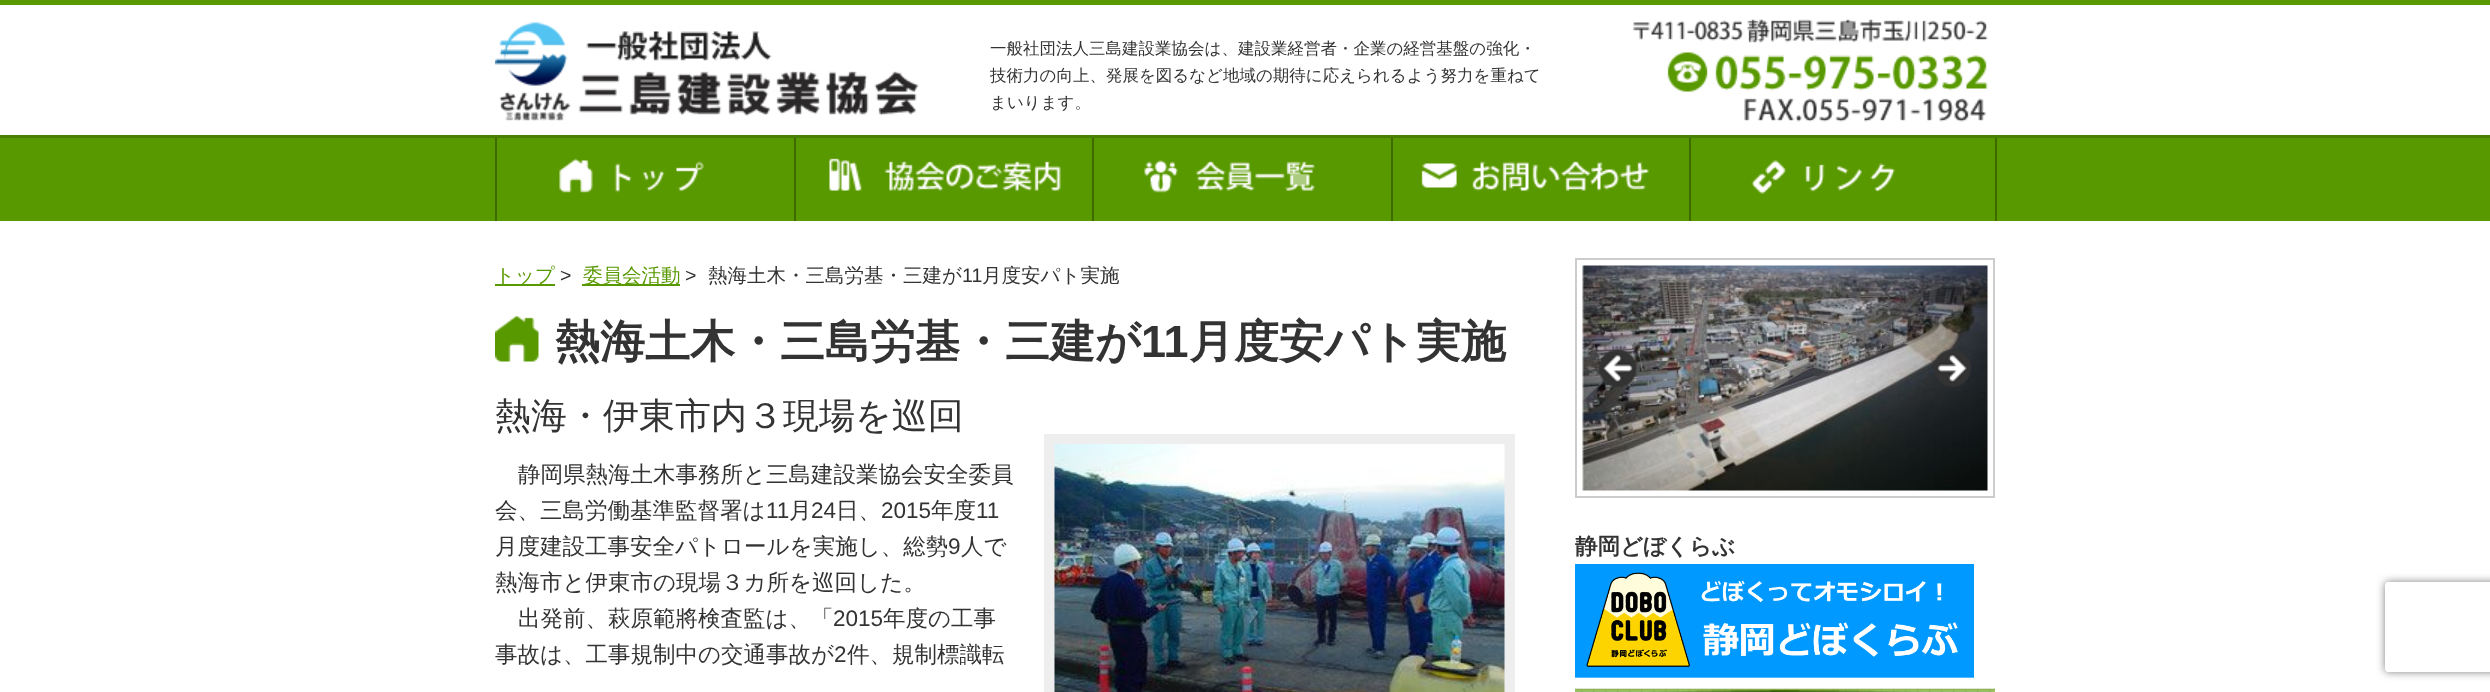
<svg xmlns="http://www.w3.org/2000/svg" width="2490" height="692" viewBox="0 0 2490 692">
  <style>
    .t1 { font: 500 16.5px WenQuanYi Zen Hei; fill: #333; }
    .t2 { font: 500 19.5px WenQuanYi Zen Hei; fill: #599900; }
    .t3 { font: 19.5px Liberation Sans; fill: #333; }
    .t4 { font: 500 19.5px WenQuanYi Zen Hei; fill: #333; }
    .t5 { font: bold 45px WenQuanYi Zen Hei; fill: #333; }
    .t6 { font: bold 45px Liberation Sans; fill: #333; }
    .t7 { font: 500 36px WenQuanYi Zen Hei; fill: #333; }
    .t8 { font: 500 22.5px WenQuanYi Zen Hei; fill: #333; }
    .t9 { font: 22.5px Liberation Sans; fill: #333; }
    .t10 { font: bold 22.5px WenQuanYi Zen Hei; fill: #333; }
  </style>
  <defs>
    <clipPath id="clip1"><path d="M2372 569H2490V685H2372ZM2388 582H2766C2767.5 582 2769 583.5 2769 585V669C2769 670.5 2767.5 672 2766 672H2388C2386.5 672 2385 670.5 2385 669V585C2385 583.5 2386.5 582 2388 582Z" clip-rule="evenodd"/></clipPath>
  </defs>
  <rect width="100%" height="100%" fill="#fff"/>
  <rect x="0" y="0" width="2490" height="5" fill="#599900"/>
  <image x="495" y="22" width="424" height="99" href="images/1.png"/>
  <text x="990" y="54" class="t1">一般社団法人三島建設業協会は、建設業経営者・企業の経営基盤の強化・</text>
  <text x="990" y="81" class="t1">技術力の向上、発展を図るなど地域の期待に応えられるよう努力を重ねて</text>
  <text x="990" y="108" class="t1">まいります。</text>
  <image x="1633" y="19" width="355" height="103" href="images/2.png"/>
  <rect x="0" y="138" width="2490" height="83" fill="#599900"/>
  <rect x="0" y="135" width="2490" height="3" fill="#498000"/>
  <rect x="1995" y="138" width="2" height="83" fill="#3e6a00"/>
  <rect x="495" y="138" width="2" height="83" fill="#3e6a00"/>
  <image x="559" y="158" width="145" height="35" href="images/3.png"/>
  <rect x="794" y="138" width="2" height="83" fill="#3e6a00"/>
  <image x="829" y="158" width="232" height="33" href="images/4.png"/>
  <rect x="1092" y="138" width="2" height="83" fill="#3e6a00"/>
  <image x="1144" y="160" width="171" height="33" href="images/5.png"/>
  <rect x="1391" y="138" width="2" height="83" fill="#3e6a00"/>
  <image x="1421" y="161" width="228" height="30" href="images/6.png"/>
  <rect x="1689" y="138" width="2" height="83" fill="#3e6a00"/>
  <image x="1751" y="160" width="144" height="34" href="images/7.png"/>
  <rect x="495" y="284" width="60" height="2" fill="#599900"/>
  <text x="495" y="282" class="t2">トップ</text>
  <text x="560" y="282" class="t3">&gt;</text>
  <rect x="582" y="284" width="98" height="2" fill="#599900"/>
  <text x="583" y="282" class="t2">委員会活動</text>
  <text x="685" y="282" class="t3">&gt;</text>
  <text x="708" y="282" class="t4">熱海土木・三島労基・三建が</text>
  <text x="962" y="282" class="t3">11</text>
  <text x="982" y="282" class="t4">月度安パト実施</text>
  <image x="495" y="316" width="44" height="46" href="images/8.png"/>
  <text x="555" y="357" class="t5">熱海土木・三島労基・三建が</text>
  <text x="1141" y="357" class="t6">11</text>
  <text x="1189" y="357" class="t5">月度安パト実施</text>
  <text x="495" y="428" class="t7">熱海・伊東市内３現場を巡回</text>
  <rect x="1044" y="434" width="471" height="258" fill="#eee"/>
  <image x="1054" y="444" width="451" height="248" href="images/9.png"/>
  <text x="518" y="482" class="t8">静岡県熱海土木事務所と三島建設業協会安全委員</text>
  <text x="495" y="518" class="t8">会、三島労働基準監督署は</text>
  <text x="766" y="518" class="t9">11</text>
  <text x="789" y="518" class="t8">月</text>
  <text x="811" y="518" class="t9">24</text>
  <text x="836" y="518" class="t8">日、</text>
  <text x="881" y="518" class="t9">2015</text>
  <text x="931" y="518" class="t8">年度</text>
  <text x="976" y="518" class="t9">11</text>
  <text x="495" y="554" class="t8">月度建設工事安全パトロールを実施し、総勢</text>
  <text x="948" y="554" class="t9">9</text>
  <text x="961" y="554" class="t8">人で</text>
  <text x="495" y="590" class="t8">熱海市と伊東市の現場３カ所を巡回した。</text>
  <text x="518" y="626" class="t8">出発前、萩原範將検査監は、「</text>
  <text x="833" y="626" class="t9">2015</text>
  <text x="883" y="626" class="t8">年度の工事</text>
  <text x="495" y="662" class="t8">事故は、工事規制中の交通事故が</text>
  <text x="834" y="662" class="t9">2</text>
  <text x="847" y="662" class="t8">件、規制標識転</text>
  <rect x="1576" y="259" width="418" height="238" fill="none" stroke="#ccc" stroke-width="2"/>
  <image x="1582" y="265" width="406" height="226" href="images/10.png"/>
  <image x="1599" y="349" width="38" height="38" href="images/11.png"/>
  <image x="1933" y="349" width="38" height="38" href="images/12.png"/>
  <text x="1575" y="554" class="t10">静岡どぼくらぶ</text>
  <image x="1575" y="564" width="399" height="114" href="images/13.png"/>
  <image x="1575" y="688" width="420" height="4" href="images/14.png"/>
  <image x="1575" y="688" width="420" height="4" href="images/15.png"/>
  <g clip-path="url(#clip1)">
    <rect x="2385" y="582" width="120" height="90" rx="3" fill="#808080" filter="blur(4px)"/>
  </g>
</svg>
